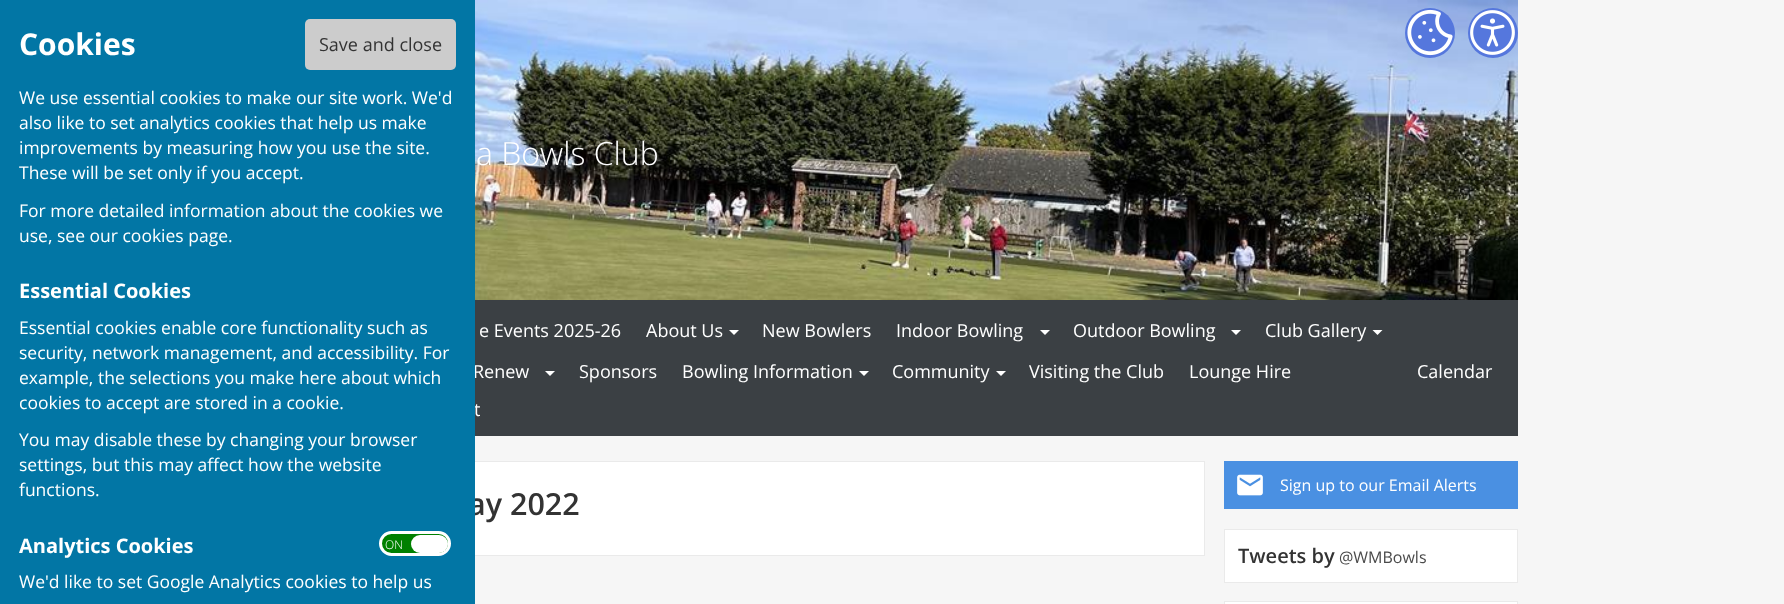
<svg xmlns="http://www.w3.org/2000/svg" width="1784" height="604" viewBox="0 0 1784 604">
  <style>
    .t1 { font: 18px Open Sans; fill: #fff; }
    .t2 { font: 600 30.5px Open Sans; fill: #333; }
    .t3 { font: bold 30px Open Sans; fill: #fff; }
    .t4 { font: 18px Open Sans; fill: #333; }
    .t5 { font: 17.5px Open Sans; fill: #fff; }
    .t6 { font: bold 20px Open Sans; fill: #fff; }
    .t7 { font: 300 12px Open Sans; fill: #fff; }
    .t8 { font: 300 32px Open Sans; fill: #fff; }
    .t9 { font: 16px Open Sans; fill: #fff; }
    .t10 { font: 600 20px Open Sans; fill: #333; }
    .t11 { font: 16px Open Sans; fill: #4a4a4a; }
  </style>
  <rect width="100%" height="100%" fill="#f6f6f6"/>
  <rect x="475" y="300" width="1043" height="136" fill="#3b4044"/>
  <text x="473" y="378" class="t1">Renew</text>
  <text x="474" y="416" class="t1">t</text>
  <rect x="475" y="462" width="729" height="93" fill="#fff"/>
  <rect x="268.5" y="461.5" width="936" height="94" fill="none" stroke="#eaeaea"/>
  <text x="468" y="515" class="t2">ay 2022</text>
  <rect x="0" y="0" width="475" height="604" fill="#0276a5"/>
  <text x="19" y="55" class="t3">Cookies</text>
  <rect x="305" y="19" width="151" height="51" rx="5" fill="#ccc"/>
  <text x="319" y="51" class="t4">Save and close</text>
  <text x="19" y="104" class="t5">We use essential cookies to make our site work. We'd</text>
  <text x="19" y="129" class="t5">also like to set analytics cookies that help us make</text>
  <text x="19" y="154" class="t5">improvements by measuring how you use the site.</text>
  <text x="19" y="179" class="t5">These will be set only if you accept.</text>
  <text x="19" y="217" class="t5">For more detailed information about the cookies we</text>
  <text x="19" y="242" class="t5">use, see our cookies page.</text>
  <text x="19" y="298" class="t6">Essential Cookies</text>
  <text x="19" y="334" class="t5">Essential cookies enable core functionality such as</text>
  <text x="19" y="359" class="t5">security, network management, and accessibility. For</text>
  <text x="19" y="384" class="t5">example, the selections you make here about which</text>
  <text x="19" y="409" class="t5">cookies to accept are stored in a cookie.</text>
  <text x="19" y="446" class="t5">You may disable these by changing your browser</text>
  <text x="19" y="471" class="t5">settings, but this may affect how the website</text>
  <text x="19" y="496" class="t5">functions.</text>
  <text x="19" y="553" class="t6">Analytics Cookies</text>
  <rect x="380.5" y="532.5" width="69" height="22" rx="11" fill="#008000" stroke="#fff" stroke-width="3"/>
  <text x="385" y="549" class="t7">ON</text>
  <rect x="411" y="535" width="37" height="18" rx="9" fill="#fff"/>
  <text x="19" y="588" class="t5">We'd like to set Google Analytics cookies to help us</text>
  <image x="475" y="0" width="1043" height="300" href="images/1.png"/>
  <circle cx="1430" cy="33" r="25" fill="#57d"/>
  <image x="1407" y="9" width="46" height="47" href="images/2.png"/>
  <circle cx="1493" cy="33" r="25" fill="#57d"/>
  <image x="1470" y="10" width="45" height="45" href="images/3.png"/>
  <text x="476" y="165" class="t8">a Bowls Club</text>
  <text x="479" y="337" class="t1">e Events 2025-26</text>
  <text x="646" y="337" class="t1">About Us</text>
  <path d="M729 330H739L734 335Z" fill="#fff"/>
  <text x="762" y="337" class="t1">New Bowlers</text>
  <text x="896" y="337" class="t1">Indoor Bowling</text>
  <path d="M1040 330H1050L1045 335Z" fill="#fff"/>
  <text x="1073" y="337" class="t1">Outdoor Bowling</text>
  <path d="M1231 330H1241L1236 335Z" fill="#fff"/>
  <text x="1265" y="337" class="t1">Club Gallery</text>
  <path d="M1372.5 330H1382.5L1377.5 335Z" fill="#fff"/>
  <path d="M545 371H555L550 376Z" fill="#fff"/>
  <text x="579" y="378" class="t1">Sponsors</text>
  <text x="682" y="378" class="t1">Bowling Information</text>
  <path d="M859 371H869L864 376Z" fill="#fff"/>
  <text x="892" y="378" class="t1">Community</text>
  <path d="M996 371H1006L1001 376Z" fill="#fff"/>
  <text x="1029" y="378" class="t1">Visiting the Club</text>
  <text x="1189" y="378" class="t1">Lounge Hire</text>
  <text x="1417" y="378" class="t1">Calendar</text>
  <rect x="1224" y="461" width="294" height="48" fill="#4a90e2"/>
  <image x="1237" y="474" width="26" height="22" href="images/4.png"/>
  <text x="1280" y="491" class="t9">Sign up to our Email Alerts</text>
  <rect x="1224.5" y="529.5" width="293" height="53" fill="#fff" stroke="#eaeaea"/>
  <text x="1238" y="563" class="t10">Tweets by</text>
  <text x="1339" y="563" class="t11">@WMBowls</text>
  <rect x="1224.5" y="601.5" width="293" height="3" fill="#fff" stroke="#eaeaea"/>
</svg>
